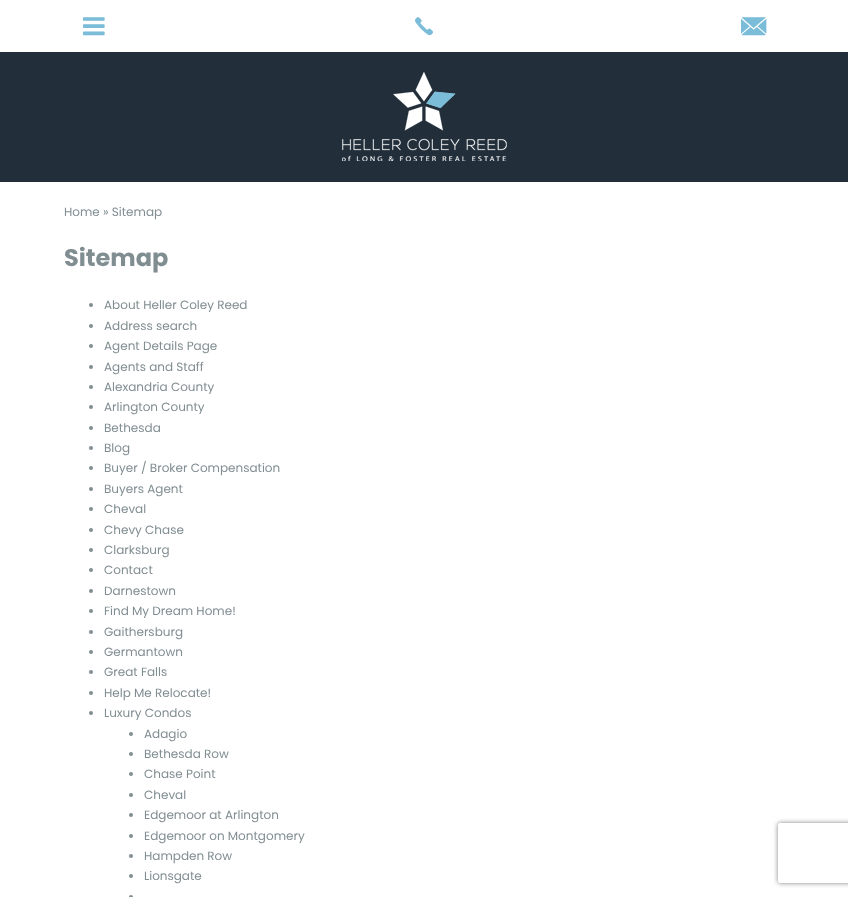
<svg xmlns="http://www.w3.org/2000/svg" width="848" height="897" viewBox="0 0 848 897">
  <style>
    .t1 { font: 18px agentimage; fill: #7bbcd9; }
    .t2 { font: 12px Poppins; fill: #808d91; }
    .t3 { font: bold 24px Poppins; fill: #808d91; }
  </style>
  <defs>
    <clipPath id="clip1"><path d="M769 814H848V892H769ZM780 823H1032C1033 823 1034 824 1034 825V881C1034 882 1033 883 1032 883H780C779 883 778 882 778 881V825C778 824 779 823 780 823Z" clip-rule="evenodd"/></clipPath>
  </defs>
  <rect width="100%" height="100%" fill="#fff"/>
  <text x="83" y="34" class="t1">򰁰</text>
  <text x="415" y="34" class="t1">򰁩</text>
  <text x="741" y="34" class="t1">򰄢</text>
  <rect x="0" y="52" width="848" height="130" fill="#222f3b"/>
  <image x="393" y="72" width="63" height="59" href="images/1.png"/>
  <image x="342" y="138" width="165" height="23" href="images/2.png"/>
  <text x="64" y="216" class="t2">Home » Sitemap</text>
  <text x="64" y="266" class="t3">Sitemap</text>
  <circle cx="91" cy="305" r="2" fill="#808d91"/>
  <text x="104" y="309" class="t2">About Heller Coley Reed</text>
  <circle cx="91" cy="326" r="2" fill="#808d91"/>
  <text x="104" y="330" class="t2">Address search</text>
  <circle cx="91" cy="346" r="2" fill="#808d91"/>
  <text x="104" y="350" class="t2">Agent Details Page</text>
  <circle cx="91" cy="367" r="2" fill="#808d91"/>
  <text x="104" y="371" class="t2">Agents and Staff</text>
  <circle cx="91" cy="387" r="2" fill="#808d91"/>
  <text x="104" y="391" class="t2">Alexandria County</text>
  <circle cx="91" cy="407" r="2" fill="#808d91"/>
  <text x="104" y="411" class="t2">Arlington County</text>
  <circle cx="91" cy="428" r="2" fill="#808d91"/>
  <text x="104" y="432" class="t2">Bethesda</text>
  <circle cx="91" cy="448" r="2" fill="#808d91"/>
  <text x="104" y="452" class="t2">Blog</text>
  <circle cx="91" cy="468" r="2" fill="#808d91"/>
  <text x="104" y="472" class="t2">Buyer / Broker Compensation</text>
  <circle cx="91" cy="489" r="2" fill="#808d91"/>
  <text x="104" y="493" class="t2">Buyers Agent</text>
  <circle cx="91" cy="509" r="2" fill="#808d91"/>
  <text x="104" y="513" class="t2">Cheval</text>
  <circle cx="91" cy="530" r="2" fill="#808d91"/>
  <text x="104" y="534" class="t2">Chevy Chase</text>
  <circle cx="91" cy="550" r="2" fill="#808d91"/>
  <text x="104" y="554" class="t2">Clarksburg</text>
  <circle cx="91" cy="570" r="2" fill="#808d91"/>
  <text x="104" y="574" class="t2">Contact</text>
  <circle cx="91" cy="591" r="2" fill="#808d91"/>
  <text x="104" y="595" class="t2">Darnestown</text>
  <circle cx="91" cy="611" r="2" fill="#808d91"/>
  <text x="104" y="615" class="t2">Find My Dream Home!</text>
  <circle cx="91" cy="632" r="2" fill="#808d91"/>
  <text x="104" y="636" class="t2">Gaithersburg</text>
  <circle cx="91" cy="652" r="2" fill="#808d91"/>
  <text x="104" y="656" class="t2">Germantown</text>
  <circle cx="91" cy="672" r="2" fill="#808d91"/>
  <text x="104" y="676" class="t2">Great Falls</text>
  <circle cx="91" cy="693" r="2" fill="#808d91"/>
  <text x="104" y="697" class="t2">Help Me Relocate!</text>
  <circle cx="91" cy="713" r="2" fill="#808d91"/>
  <text x="104" y="717" class="t2">Luxury Condos</text>
  <circle cx="131" cy="734" r="2" fill="#808d91"/>
  <text x="144" y="738" class="t2">Adagio</text>
  <circle cx="131" cy="754" r="2" fill="#808d91"/>
  <text x="144" y="758" class="t2">Bethesda Row</text>
  <circle cx="131" cy="774" r="2" fill="#808d91"/>
  <text x="144" y="778" class="t2">Chase Point</text>
  <circle cx="131" cy="795" r="2" fill="#808d91"/>
  <text x="144" y="799" class="t2">Cheval</text>
  <circle cx="131" cy="815" r="2" fill="#808d91"/>
  <text x="144" y="819" class="t2">Edgemoor at Arlington</text>
  <circle cx="131" cy="836" r="2" fill="#808d91"/>
  <text x="144" y="840" class="t2">Edgemoor on Montgomery</text>
  <circle cx="131" cy="856" r="2" fill="#808d91"/>
  <text x="144" y="860" class="t2">Hampden Row</text>
  <circle cx="131" cy="876" r="2" fill="#808d91"/>
  <text x="144" y="880" class="t2">Lionsgate</text>
  <circle cx="131" cy="897" r="2" fill="#808d91"/>
  <g clip-path="url(#clip1)">
    <rect x="778" y="823" width="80" height="60" rx="2" fill="#808080" filter="blur(2.5px)"/>
  </g>
</svg>
